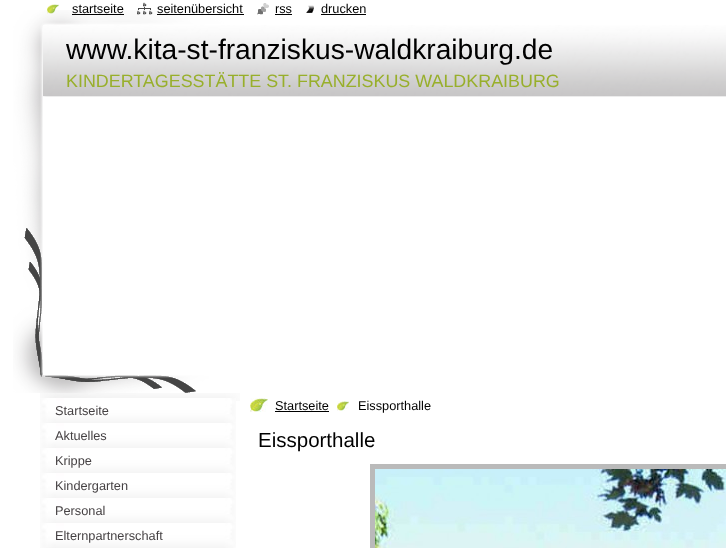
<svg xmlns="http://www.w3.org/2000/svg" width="726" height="548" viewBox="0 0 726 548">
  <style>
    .t1 { font: 12.75px Liberation Sans; fill: #000; }
    .t2 { font: 28.2px Liberation Sans; fill: #000; }
    .t3 { font: 17.9px Liberation Sans; fill: #98af2b; }
    .t4 { font: 12.75px Liberation Sans; fill: #454143; }
    .t5 { font: 20.5px Liberation Sans; fill: #000; }
  </style>
  <rect width="100%" height="100%" fill="#fff"/>
  <image x="13" y="10" width="713" height="383" href="images/5.png"/>
  <image x="47" y="4" width="12" height="10" href="images/1.png"/>
  <text x="72" y="13" class="t1">startseite</text>
  <rect x="72" y="14" width="52" height="1" fill="#000"/>
  <image x="137" y="2" width="16" height="13" href="images/2.png"/>
  <text x="157" y="13" class="t1">seitenübersicht</text>
  <rect x="157" y="14" width="87" height="1" fill="#000"/>
  <image x="257" y="3" width="12" height="12" href="images/3.png"/>
  <text x="275" y="13" class="t1">rss</text>
  <rect x="275" y="14" width="17" height="1" fill="#000"/>
  <image x="306" y="5" width="8" height="8" href="images/4.png"/>
  <text x="321" y="13" class="t1">drucken</text>
  <rect x="321" y="14" width="45" height="1" fill="#000"/>
  <text x="66" y="59" class="t2">www.kita-st-franziskus-waldkraiburg.de</text>
  <text x="66" y="87" class="t3">KINDERTAGESSTÄTTE ST. FRANZISKUS WALDKRAIBURG</text>
  <image x="40" y="393" width="200" height="8" href="images/6.png"/>
  <image x="40" y="398" width="196" height="25" href="images/7.png"/>
  <text x="55" y="415" class="t4">Startseite</text>
  <image x="40" y="423" width="196" height="25" href="images/7.png"/>
  <text x="55" y="440" class="t4">Aktuelles</text>
  <image x="40" y="448" width="196" height="25" href="images/7.png"/>
  <text x="55" y="465" class="t4">Krippe</text>
  <image x="40" y="473" width="196" height="25" href="images/7.png"/>
  <text x="55" y="490" class="t4">Kindergarten</text>
  <image x="40" y="498" width="196" height="25" href="images/7.png"/>
  <text x="55" y="515" class="t4">Personal</text>
  <image x="40" y="523" width="196" height="25" href="images/7.png"/>
  <text x="55" y="540" class="t4">Elternpartnerschaft</text>
  <image x="250" y="398" width="18" height="14" href="images/8.png"/>
  <text x="275" y="410" class="t1">Startseite</text>
  <rect x="275" y="411" width="54" height="1" fill="#000"/>
  <image x="337" y="401" width="12" height="10" href="images/9.png"/>
  <text x="358" y="410" class="t1">Eissporthalle</text>
  <text x="258" y="447" class="t5">Eissporthalle</text>
  <rect x="372.5" y="466.5" width="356" height="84" fill="none" stroke="#bababa" stroke-width="5"/>
  <image x="375" y="469" width="351" height="79" href="images/10.png"/>
</svg>
